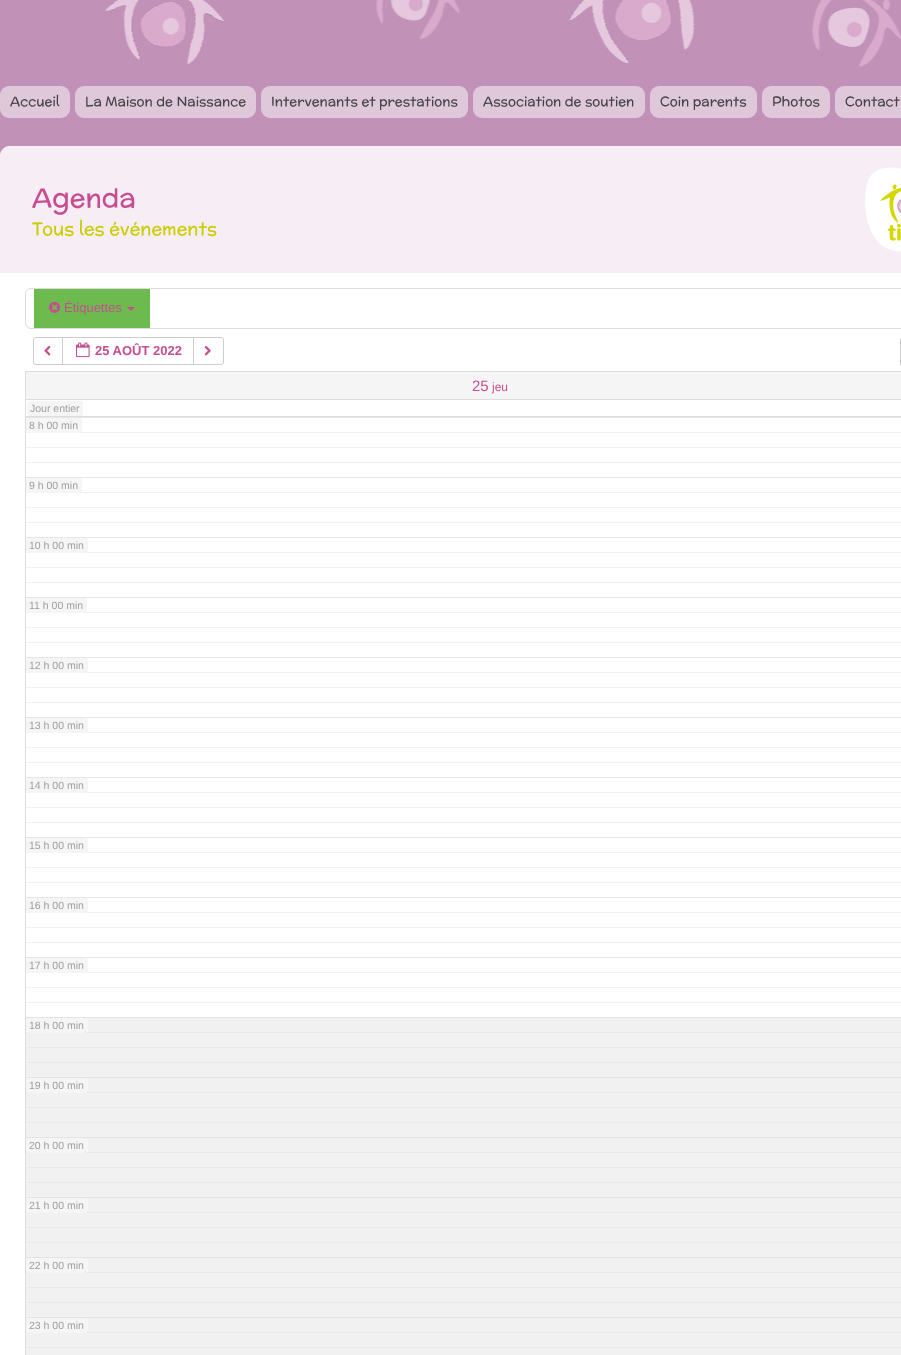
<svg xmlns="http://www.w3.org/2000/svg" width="901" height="1355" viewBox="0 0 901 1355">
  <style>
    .t1 { font: 13.3px McLaren; fill: #444; }
    .t2 { font: 26.5px McLaren; fill: #c64d90; }
    .t3 { font: 18px McLaren; fill: #cacd00; }
    .t4 { font: 13px Liberation Sans; fill: #c64d90; }
    .t5 { font: bold 13px Liberation Sans; fill: #c64d90; }
    .t6 { font: 15px Liberation Sans; fill: #c64d90; }
    .t7 { font: 12px Liberation Sans; fill: #c64d90; }
    .t8 { font: 10.5px Liberation Sans; fill: #9e9e9e; }
  </style>
  <rect width="100%" height="100%" fill="#fff"/>
  <image x="0" y="0" width="901" height="156" href="images/1.png"/>
  <rect x="0" y="86" width="70" height="32" rx="9" fill="#e0c8db"/>
  <text x="10" y="106" class="t1">Accueil</text>
  <rect x="75" y="86" width="181" height="32" rx="9" fill="#e0c8db"/>
  <text x="85" y="106" class="t1">La Maison de Naissance</text>
  <rect x="261" y="86" width="207" height="32" rx="9" fill="#e0c8db"/>
  <text x="271" y="106" class="t1">Intervenants et prestations</text>
  <rect x="473" y="86" width="172" height="32" rx="9" fill="#e0c8db"/>
  <text x="483" y="106" class="t1">Association de soutien</text>
  <rect x="650" y="86" width="107" height="32" rx="9" fill="#e0c8db"/>
  <text x="660" y="106" class="t1">Coin parents</text>
  <rect x="762" y="86" width="68" height="32" rx="9" fill="#e0c8db"/>
  <text x="772" y="106" class="t1">Photos</text>
  <rect x="835" y="86" width="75" height="32" rx="9" fill="#e0c8db"/>
  <text x="845" y="106" class="t1">Contact</text>
  <rect x="0" y="146" width="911" height="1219" rx="10" fill="#fff"/>
  <rect x="26" y="1318" width="875" height="37" fill="#f1f1f1"/>
  <rect x="25" y="1347" width="876" height="1" fill="#e9e9e9"/>
  <rect x="25" y="1332" width="876" height="1" fill="#e9e9e9"/>
  <rect x="25" y="1317" width="876" height="1" fill="#e3e3e3"/>
  <rect x="26" y="1258" width="875" height="59" fill="#f1f1f1"/>
  <rect x="25" y="1302" width="876" height="1" fill="#e9e9e9"/>
  <rect x="25" y="1287" width="876" height="1" fill="#e9e9e9"/>
  <rect x="25" y="1272" width="876" height="1" fill="#e9e9e9"/>
  <rect x="25" y="1257" width="876" height="1" fill="#e3e3e3"/>
  <rect x="26" y="1198" width="875" height="59" fill="#f1f1f1"/>
  <rect x="25" y="1242" width="876" height="1" fill="#e9e9e9"/>
  <rect x="25" y="1227" width="876" height="1" fill="#e9e9e9"/>
  <rect x="25" y="1212" width="876" height="1" fill="#e9e9e9"/>
  <rect x="25" y="1197" width="876" height="1" fill="#e3e3e3"/>
  <rect x="26" y="1138" width="875" height="59" fill="#f1f1f1"/>
  <rect x="25" y="1182" width="876" height="1" fill="#e9e9e9"/>
  <rect x="25" y="1167" width="876" height="1" fill="#e9e9e9"/>
  <rect x="25" y="1152" width="876" height="1" fill="#e9e9e9"/>
  <rect x="25" y="1137" width="876" height="1" fill="#e3e3e3"/>
  <rect x="26" y="1078" width="875" height="59" fill="#f1f1f1"/>
  <rect x="25" y="1122" width="876" height="1" fill="#e9e9e9"/>
  <rect x="25" y="1107" width="876" height="1" fill="#e9e9e9"/>
  <rect x="25" y="1092" width="876" height="1" fill="#e9e9e9"/>
  <rect x="25" y="1077" width="876" height="1" fill="#e3e3e3"/>
  <rect x="26" y="1018" width="875" height="59" fill="#f1f1f1"/>
  <rect x="25" y="1062" width="876" height="1" fill="#e9e9e9"/>
  <rect x="25" y="1047" width="876" height="1" fill="#e9e9e9"/>
  <rect x="25" y="1032" width="876" height="1" fill="#e9e9e9"/>
  <rect x="25" y="1017" width="876" height="1" fill="#e3e3e3"/>
  <rect x="25" y="1002" width="876" height="1" fill="#f1f1f1"/>
  <rect x="25" y="987" width="876" height="1" fill="#f1f1f1"/>
  <rect x="25" y="972" width="876" height="1" fill="#f1f1f1"/>
  <rect x="25" y="957" width="876" height="1" fill="#e7e7e7"/>
  <rect x="25" y="942" width="876" height="1" fill="#f1f1f1"/>
  <rect x="25" y="927" width="876" height="1" fill="#f1f1f1"/>
  <rect x="25" y="912" width="876" height="1" fill="#f1f1f1"/>
  <rect x="25" y="897" width="876" height="1" fill="#e7e7e7"/>
  <rect x="25" y="882" width="876" height="1" fill="#f1f1f1"/>
  <rect x="25" y="867" width="876" height="1" fill="#f1f1f1"/>
  <rect x="25" y="852" width="876" height="1" fill="#f1f1f1"/>
  <rect x="25" y="837" width="876" height="1" fill="#e7e7e7"/>
  <rect x="25" y="822" width="876" height="1" fill="#f1f1f1"/>
  <rect x="25" y="807" width="876" height="1" fill="#f1f1f1"/>
  <rect x="25" y="792" width="876" height="1" fill="#f1f1f1"/>
  <rect x="25" y="777" width="876" height="1" fill="#e7e7e7"/>
  <rect x="25" y="762" width="876" height="1" fill="#f1f1f1"/>
  <rect x="25" y="747" width="876" height="1" fill="#f1f1f1"/>
  <rect x="25" y="732" width="876" height="1" fill="#f1f1f1"/>
  <rect x="25" y="717" width="876" height="1" fill="#e7e7e7"/>
  <rect x="25" y="702" width="876" height="1" fill="#f1f1f1"/>
  <rect x="25" y="687" width="876" height="1" fill="#f1f1f1"/>
  <rect x="25" y="672" width="876" height="1" fill="#f1f1f1"/>
  <rect x="25" y="657" width="876" height="1" fill="#e7e7e7"/>
  <rect x="25" y="642" width="876" height="1" fill="#f1f1f1"/>
  <rect x="25" y="627" width="876" height="1" fill="#f1f1f1"/>
  <rect x="25" y="612" width="876" height="1" fill="#f1f1f1"/>
  <rect x="25" y="597" width="876" height="1" fill="#e7e7e7"/>
  <rect x="25" y="582" width="876" height="1" fill="#f1f1f1"/>
  <rect x="25" y="567" width="876" height="1" fill="#f1f1f1"/>
  <rect x="25" y="552" width="876" height="1" fill="#f1f1f1"/>
  <rect x="25" y="537" width="876" height="1" fill="#e7e7e7"/>
  <rect x="25" y="522" width="876" height="1" fill="#f1f1f1"/>
  <rect x="25" y="507" width="876" height="1" fill="#f1f1f1"/>
  <rect x="25" y="492" width="876" height="1" fill="#f1f1f1"/>
  <rect x="25" y="477" width="876" height="1" fill="#e7e7e7"/>
  <rect x="25" y="462" width="876" height="1" fill="#f1f1f1"/>
  <rect x="25" y="447" width="876" height="1" fill="#f1f1f1"/>
  <rect x="25" y="432" width="876" height="1" fill="#f1f1f1"/>
  <rect x="25" y="417" width="876" height="1" fill="#e7e7e7"/>
  <path d="M10 146H901C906.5 146 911 150.5 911 156V273H0V156C0 150.5 4.5 146 10 146Z" fill="#f7edf5"/>
  <image x="865" y="167" width="36" height="85" href="images/2.png"/>
  <text x="32" y="207" class="t2">Agenda</text>
  <text x="32" y="235" class="t3">Tous les événements</text>
  <rect x="25.5" y="288.5" width="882" height="40" rx="5.5" fill="none" stroke="#dbdbdb"/>
  <rect x="34" y="289" width="116" height="39" fill="#6dbb4f"/>
  <image x="49" y="301" width="12" height="12" href="images/3.png"/>
  <text x="64" y="312" class="t4">Étiquettes</text>
  <path d="M127 307H135L131 311Z" fill="#c64d90"/>
  <path d="M36 337.5H62.5V364.5H36C34.5 364.5 33.5 363.5 33.5 362V340C33.5 338.5 34.5 337.5 36 337.5Z" fill="none" stroke="#ccc"/>
  <image x="44" y="346" width="7" height="10" href="images/4.png"/>
  <rect x="62.5" y="337.5" width="131" height="27" fill="none" stroke="#ccc"/>
  <image x="76" y="342" width="14" height="16" href="images/5.png"/>
  <text x="95" y="355" class="t5">25 AOÛT 2022</text>
  <path d="M193.5 337.5H221C222.5 337.5 223.5 338.5 223.5 340V362C223.5 363.5 222.5 364.5 221 364.5H193.5Z" fill="#fff" stroke="#ccc"/>
  <image x="204" y="346" width="7" height="10" href="images/6.png"/>
  <rect x="900.5" y="337.5" width="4" height="29" rx="2.5" fill="none" stroke="#ccc"/>
  <rect x="25" y="371" width="876" height="1" fill="#ddd"/>
  <rect x="25" y="371" width="1" height="646" fill="#ddd"/>
  <rect x="26" y="372" width="875" height="27" fill="#f5f5f5"/>
  <text x="472" y="391" class="t6">25</text>
  <text x="492" y="391" class="t7">jeu</text>
  <rect x="25" y="399" width="876" height="1" fill="#ddd"/>
  <rect x="25" y="416" width="876" height="1" fill="#ddd"/>
  <rect x="27" y="401" width="56" height="15" rx="3" fill="#f5f5f5"/>
  <text x="30" y="412" class="t8">Jour entier</text>
  <rect x="25" y="1017" width="1" height="338" fill="#ddd"/>
  <rect x="26" y="418" width="56" height="15" rx="3" fill="#f5f5f5"/>
  <text x="29" y="429" class="t8">8 h 00 min</text>
  <rect x="26" y="478" width="56" height="15" rx="3" fill="#f5f5f5"/>
  <text x="29" y="489" class="t8">9 h 00 min</text>
  <rect x="26" y="538" width="62" height="15" rx="3" fill="#f5f5f5"/>
  <text x="29" y="549" class="t8">10 h 00 min</text>
  <rect x="26" y="598" width="61" height="15" rx="3" fill="#f5f5f5"/>
  <text x="29" y="609" class="t8">11 h 00 min</text>
  <rect x="26" y="658" width="62" height="15" rx="3" fill="#f5f5f5"/>
  <text x="29" y="669" class="t8">12 h 00 min</text>
  <rect x="26" y="718" width="62" height="15" rx="3" fill="#f5f5f5"/>
  <text x="29" y="729" class="t8">13 h 00 min</text>
  <rect x="26" y="778" width="62" height="15" rx="3" fill="#f5f5f5"/>
  <text x="29" y="789" class="t8">14 h 00 min</text>
  <rect x="26" y="838" width="62" height="15" rx="3" fill="#f5f5f5"/>
  <text x="29" y="849" class="t8">15 h 00 min</text>
  <rect x="26" y="898" width="62" height="15" rx="3" fill="#f5f5f5"/>
  <text x="29" y="909" class="t8">16 h 00 min</text>
  <rect x="26" y="958" width="62" height="15" rx="3" fill="#f5f5f5"/>
  <text x="29" y="969" class="t8">17 h 00 min</text>
  <rect x="26" y="1018" width="62" height="15" rx="3" fill="#f5f5f5"/>
  <text x="29" y="1029" class="t8">18 h 00 min</text>
  <rect x="26" y="1078" width="62" height="15" rx="3" fill="#f5f5f5"/>
  <text x="29" y="1089" class="t8">19 h 00 min</text>
  <rect x="26" y="1138" width="62" height="15" rx="3" fill="#f5f5f5"/>
  <text x="29" y="1149" class="t8">20 h 00 min</text>
  <rect x="26" y="1198" width="62" height="15" rx="3" fill="#f5f5f5"/>
  <text x="29" y="1209" class="t8">21 h 00 min</text>
  <rect x="26" y="1258" width="62" height="15" rx="3" fill="#f5f5f5"/>
  <text x="29" y="1269" class="t8">22 h 00 min</text>
  <rect x="26" y="1318" width="62" height="15" rx="3" fill="#f5f5f5"/>
  <text x="29" y="1329" class="t8">23 h 00 min</text>
</svg>
